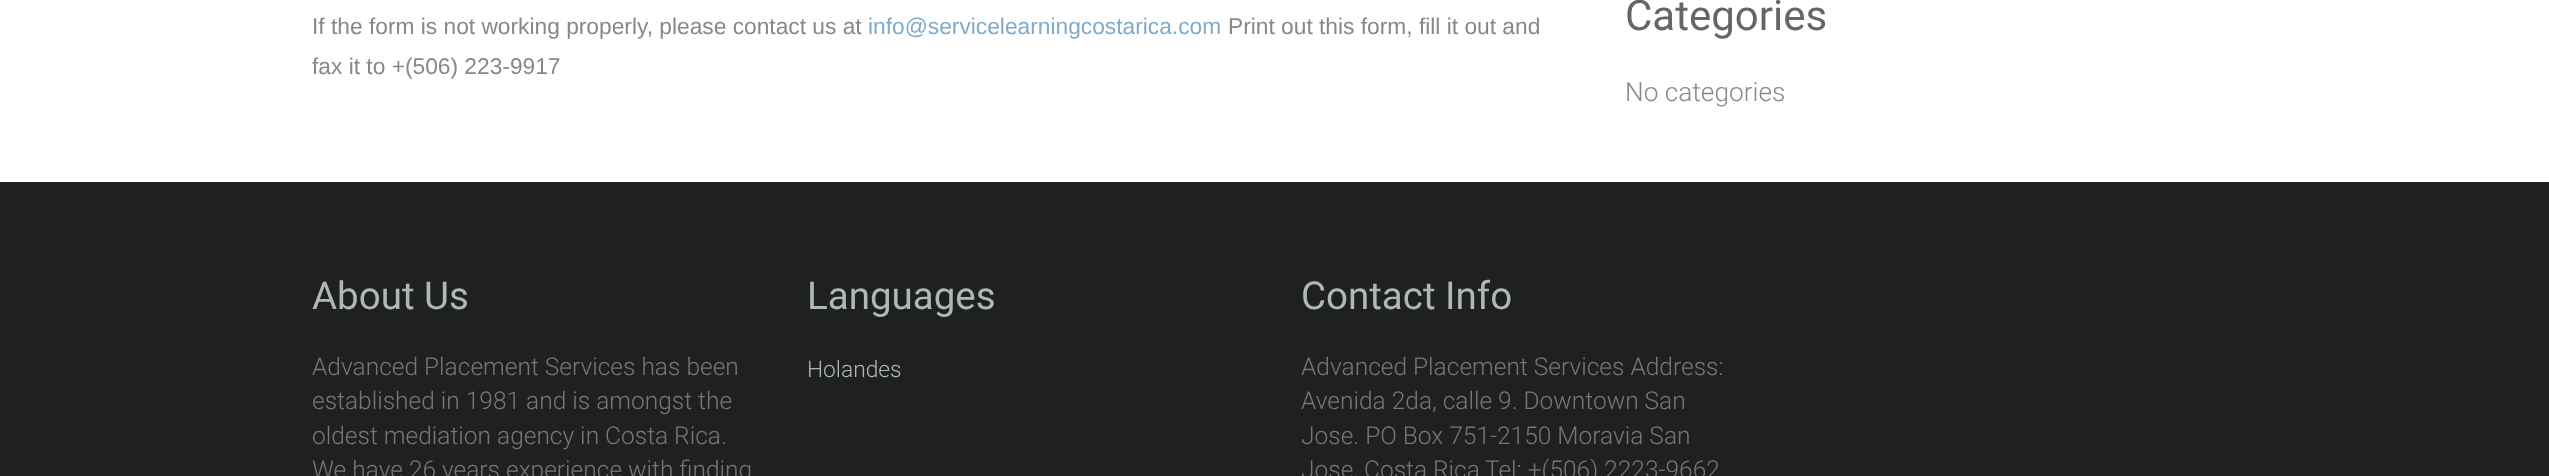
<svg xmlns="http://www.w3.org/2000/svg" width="2549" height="476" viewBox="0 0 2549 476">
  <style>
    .t1 { font: 22.75px Liberation Sans; fill: #888; }
    .t2 { font: 22.75px Liberation Sans; fill: #80abc8; }
    .t3 { font: 42px Roboto; fill: #666; }
    .t4 { font: 300 26.25px Roboto; fill: #888; }
    .t5 { font: 38.5px Roboto; fill: #b1b6b6; }
    .t6 { font: 300 24.5px Roboto; fill: #777; }
    .t7 { font: 300 22.75px Roboto; fill: #b1b6b6; }
  </style>
  <rect width="100%" height="100%" fill="#fff"/>
  <text x="312" y="34" class="t1">If the form is not working properly, please contact us at</text>
  <text x="868" y="34" class="t2">info@servicelearningcostarica.com</text>
  <text x="1228" y="34" class="t1">Print out this form, fill it out and</text>
  <text x="312" y="74" class="t1">fax it to +(506) 223-9917</text>
  <text x="1625" y="30" class="t3">Categories</text>
  <text x="1625" y="101" class="t4">No categories</text>
  <rect x="0" y="182" width="2549" height="294" fill="#1f2021"/>
  <text x="312" y="309" class="t5">About Us</text>
  <text x="312" y="375" class="t6">Advanced Placement Services has been</text>
  <text x="312" y="409" class="t6">established in 1981 and is amongst the</text>
  <text x="312" y="444" class="t6">oldest mediation agency in Costa Rica.</text>
  <text x="312" y="478" class="t6">We have 26 years experience with finding</text>
  <text x="807" y="309" class="t5">Languages</text>
  <text x="807" y="377" class="t7">Holandes</text>
  <text x="1301" y="309" class="t5">Contact Info</text>
  <text x="1301" y="375" class="t6">Advanced Placement Services Address:</text>
  <text x="1301" y="409" class="t6">Avenida 2da, calle 9. Downtown San</text>
  <text x="1301" y="444" class="t6">Jose. PO Box 751-2150 Moravia San</text>
  <text x="1301" y="478" class="t6">Jose, Costa Rica</text>
  <text x="1485" y="478" class="t6">Tel: +(506) 2223-9662</text>
</svg>
